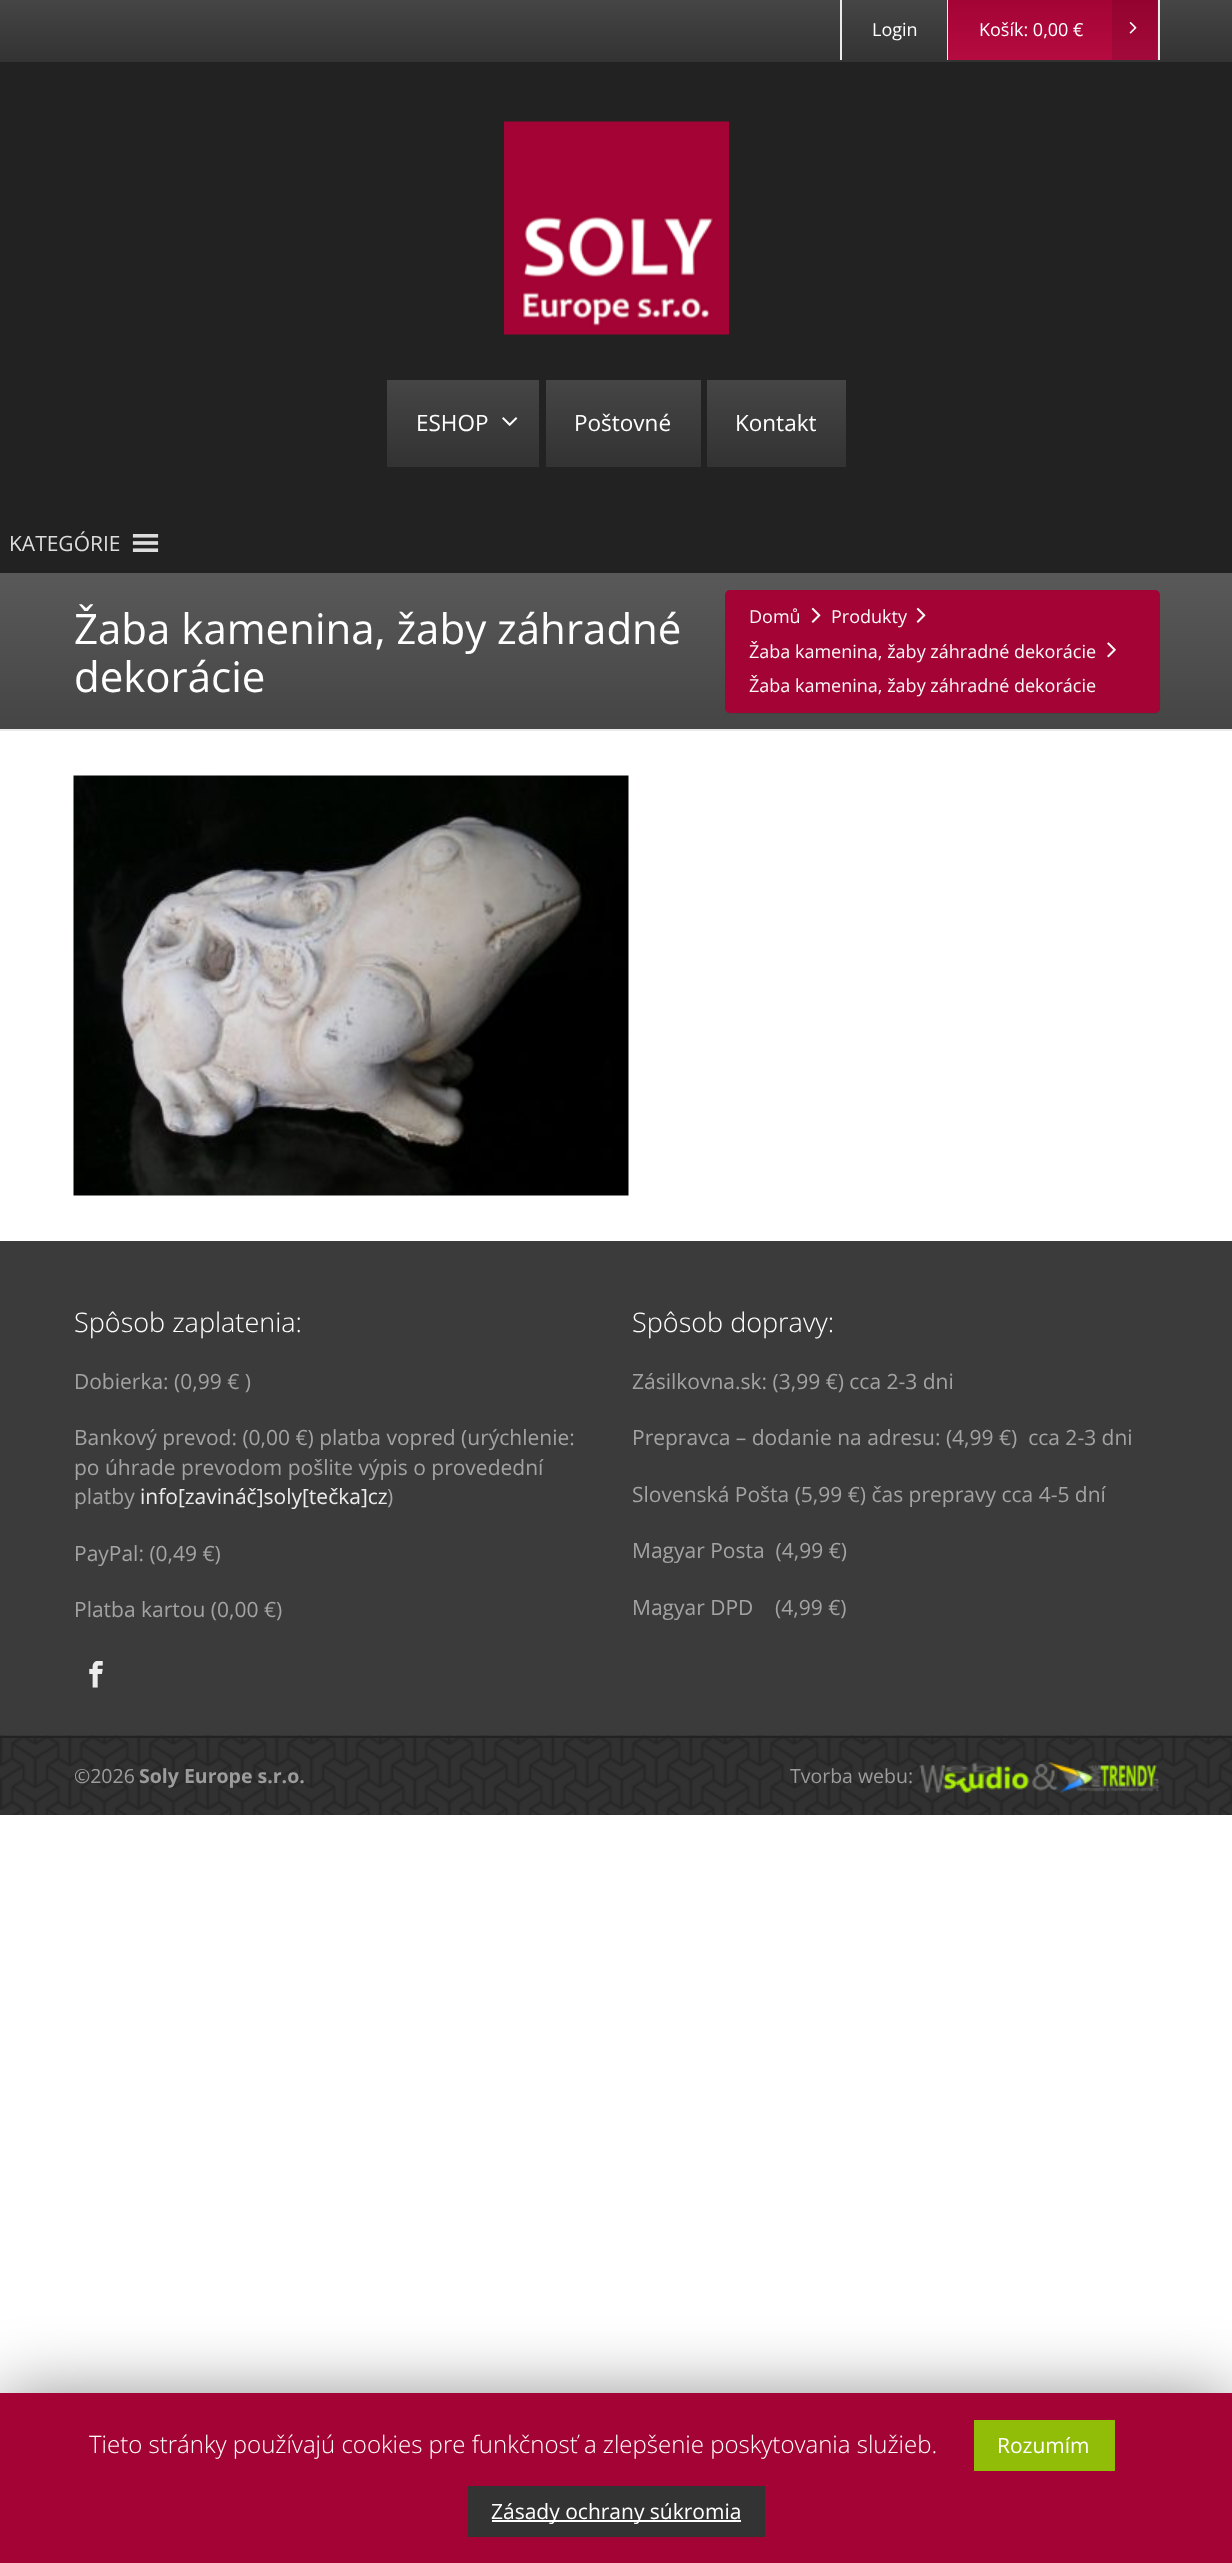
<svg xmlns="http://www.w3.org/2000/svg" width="1232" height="2563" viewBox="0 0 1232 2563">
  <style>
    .t1 { font: 18px Open Sans; fill: #fff; }
    .t2 { font: 22.5px Open Sans; fill: #fff; }
    .t3 { font: 21px Open Sans; fill: #ddd; }
    .t4 { font: 42px Open Sans; fill: #fff; }
    .t5 { font: 18px Open Sans; fill: #f9f9f9; }
    .t6 { font: 300 27px Open Sans; fill: #fff; }
    .t7 { font: 21px Open Sans; fill: #a3a3a3; }
    .t8 { font: 21px Open Sans; fill: #ececec; }
    .t9 { font: 19.5px Open Sans; fill: #9c9c9c; }
    .t10 { font: bold 19.5px Open Sans; fill: #9c9c9c; }
    .t11 { font: 300 24px Open Sans; fill: #fff; }
    .t12 { font: 21px Open Sans; fill: #fff; }
  </style>
  <defs>
    <linearGradient id="g1" gradientUnits="userSpaceOnUse" x1="617" y1="0" x2="617" y2="60"><stop offset="0" stop-color="#454545"/><stop offset="1" stop-color="#333"/></linearGradient>
    <linearGradient id="g2" gradientUnits="userSpaceOnUse" x1="1053" y1="0" x2="1053" y2="60"><stop offset="0" stop-color="#a40335"/><stop offset="1" stop-color="#b50b41"/></linearGradient>
    <linearGradient id="g3" gradientUnits="userSpaceOnUse" x1="1053" y1="0" x2="1053" y2="60"><stop offset="0" stop-color="#940330"/><stop offset="1" stop-color="#a30a3b"/></linearGradient>
    <linearGradient id="g4" gradientUnits="userSpaceOnUse" x1="463" y1="380" x2="463" y2="464"><stop offset="0" stop-color="#454545"/><stop offset="1" stop-color="#333"/></linearGradient>
    <linearGradient id="g5" gradientUnits="userSpaceOnUse" x1="623" y1="380" x2="623" y2="464"><stop offset="0" stop-color="#454545"/><stop offset="1" stop-color="#333"/></linearGradient>
    <linearGradient id="g6" gradientUnits="userSpaceOnUse" x1="776" y1="380" x2="776" y2="464"><stop offset="0" stop-color="#454545"/><stop offset="1" stop-color="#333"/></linearGradient>
    <linearGradient id="g7" gradientUnits="userSpaceOnUse" x1="617" y1="573" x2="617" y2="729"><stop offset="0" stop-color="#595959"/><stop offset="1" stop-color="#454545"/></linearGradient>
  </defs>
  <rect width="100%" height="100%" fill="#fff"/>
  <rect x="0" y="62" width="1232" height="511" fill="#222"/>
  <rect x="0" y="60" width="1232" height="2" fill="#333"/>
  <rect x="0" y="0" width="1232" height="60" fill="url(#g1)"/>
  <rect x="947" y="0" width="1" height="60" fill="#ebebeb"/>
  <rect x="840" y="0" width="2" height="60" fill="#ebebeb"/>
  <text x="872" y="36" class="t1">Login</text>
  <rect x="1158" y="0" width="2" height="60" fill="#ebebeb"/>
  <rect x="948" y="0" width="210" height="60" fill="url(#g2)"/>
  <rect x="1112" y="0" width="45" height="60" fill="url(#g3)"/>
  <text x="979" y="36" class="t1">Košík: 0,00 €</text>
  <image x="1129" y="22" width="8" height="12" href="images/1.png"/>
  <image x="504" y="121" width="225" height="214" href="images/2.png"/>
  <rect x="387" y="464" width="152" height="3" fill="#333"/>
  <rect x="387" y="380" width="152" height="84" fill="url(#g4)"/>
  <text x="416" y="431" class="t2">ESHOP</text>
  <image x="502" y="417" width="16" height="9" href="images/3.png"/>
  <rect x="546" y="464" width="155" height="3" fill="#333"/>
  <rect x="546" y="380" width="155" height="84" fill="url(#g5)"/>
  <text x="574" y="431" class="t2">Poštovné</text>
  <rect x="707" y="464" width="139" height="3" fill="#333"/>
  <rect x="707" y="380" width="139" height="84" fill="url(#g6)"/>
  <text x="735" y="431" class="t2">Kontakt</text>
  <text x="9" y="551" class="t3">KATEGÓRIE</text>
  <image x="132" y="534" width="27" height="18" href="images/4.png"/>
  <rect x="0" y="573" width="1232" height="156" fill="url(#g7)"/>
  <rect x="0" y="729" width="1232" height="2" fill="#ebebeb"/>
  <text x="74" y="644" class="t4">Žaba kamenina, žaby záhradné</text>
  <text x="74" y="692" class="t4">dekorácie</text>
  <path d="M725 710C726 712 728 714 730 714H1155C1158 714 1160 712 1160 709V596L1159 594L1160 689C1160 698 1163 712 1155 712H729C727 712 726 712 725 710Z" fill="#00000012"/>
  <rect x="726" y="591" width="433" height="121" rx="4" fill="#a40335" stroke="#a40336" stroke-width="2"/>
  <text x="749" y="623" class="t5">Domů</text>
  <image x="811" y="607" width="10" height="16" href="images/5.png"/>
  <text x="831" y="623" class="t5">Produkty</text>
  <image x="916" y="607" width="10" height="16" href="images/5.png"/>
  <text x="749" y="658" class="t5">Žaba kamenina, žaby záhradné dekorácie</text>
  <image x="1107" y="642" width="9" height="16" href="images/6.png"/>
  <text x="749" y="692" class="t5">Žaba kamenina, žaby záhradné dekorácie</text>
  <image x="73" y="775" width="556" height="421" href="images/7.png"/>
  <rect x="0" y="1241" width="1232" height="495" fill="#3b3b3b"/>
  <text x="74" y="1332" class="t6">Spôsob zaplatenia:</text>
  <text x="74" y="1389" class="t7">Dobierka: (0,99 € )</text>
  <text x="74" y="1445" class="t7">Bankový prevod: (0,00 €) platba vopred (urýchlenie:</text>
  <text x="74" y="1475" class="t7">po úhrade prevodom pošlite výpis o provedední</text>
  <text x="74" y="1504" class="t7">platby</text>
  <text x="140" y="1504" class="t8">info[zavináč]soly[tečka]cz</text>
  <text x="387" y="1504" class="t7">)</text>
  <text x="74" y="1561" class="t7">PayPal: (0,49 €)</text>
  <text x="74" y="1617" class="t7">Platba kartou (0,00 €)</text>
  <image x="89" y="1661" width="14" height="27" href="images/8.png"/>
  <text x="632" y="1332" class="t6">Spôsob dopravy:</text>
  <text x="632" y="1389" class="t7">Zásilkovna.sk: (3,99 €) cca 2-3 dni</text>
  <text x="632" y="1445" class="t7" xml:space="preserve">Prepravca – dodanie na adresu: (4,99 €)  cca 2-3 dni</text>
  <text x="632" y="1502" class="t7">Slovenská Pošta (5,99 €) čas prepravy cca 4-5 dní</text>
  <text x="632" y="1558" class="t7" xml:space="preserve">Magyar Posta  (4,99 €)</text>
  <text x="632" y="1615" class="t7" xml:space="preserve">Magyar DPD    (4,99 €)</text>
  <image x="0" y="1735" width="1232" height="80" href="images/9.png"/>
  <rect x="0" y="1736" width="1232" height="2" fill="#222"/>
  <text x="74" y="1783" class="t9">©2026</text>
  <text x="139" y="1783" class="t10">Soly Europe s.r.o.</text>
  <text x="790" y="1783" class="t9">Tvorba webu:</text>
  <image x="919" y="1762" width="241" height="31" href="images/10.png"/>
  <rect x="0" y="2400" width="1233" height="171" fill="#00000080" filter="blur(37.5px)"/>
  <rect x="0" y="2393" width="1232" height="170" fill="#a40335"/>
  <text x="89" y="2453" class="t11">Tieto stránky používajú cookies pre funkčnosť a zlepšenie poskytovania služieb.</text>
  <rect x="974" y="2420" width="141" height="51" fill="#91bd09"/>
  <text x="997" y="2453" class="t12">Rozumím</text>
  <rect x="468" y="2486" width="297" height="51" fill="#333"/>
  <rect x="492" y="2520" width="249" height="2" fill="#fff"/>
  <text x="491" y="2519" class="t12">Zásady ochrany súkromia</text>
</svg>
